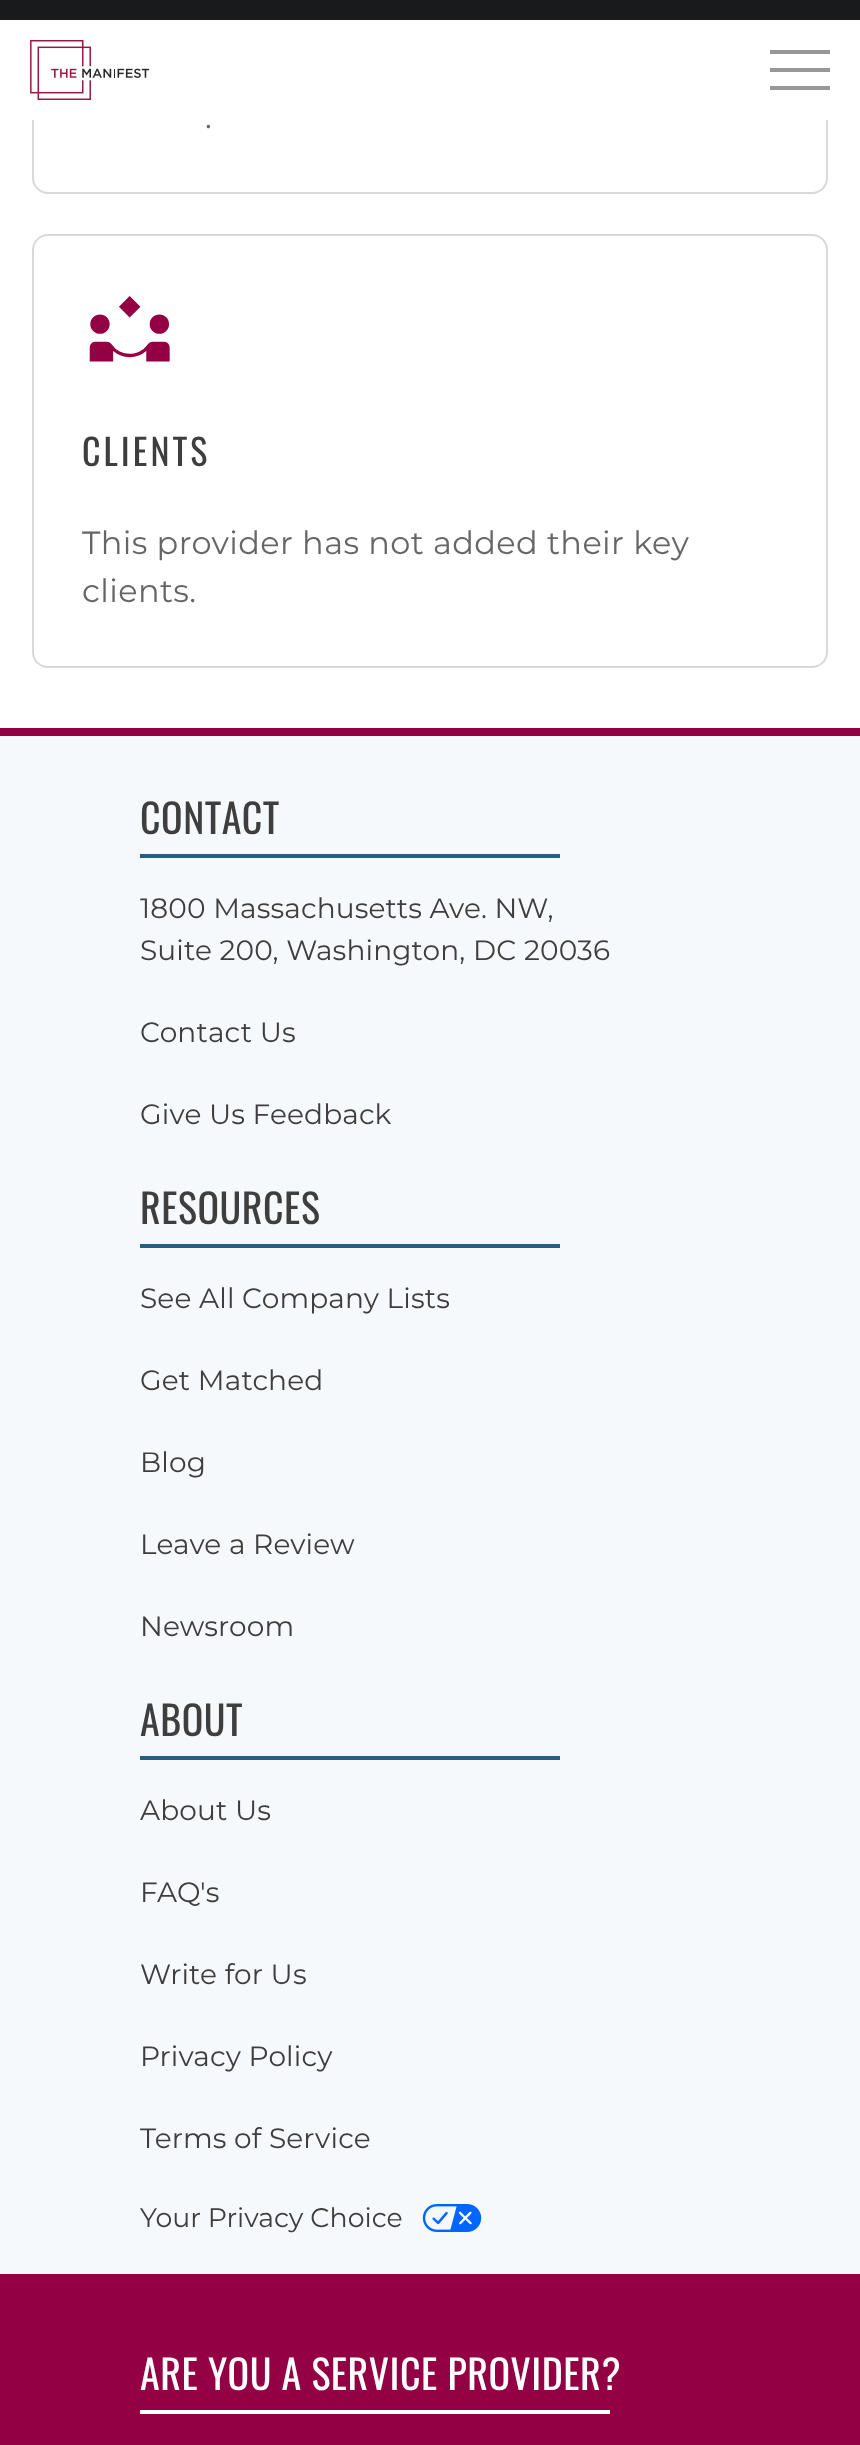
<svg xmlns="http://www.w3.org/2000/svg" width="860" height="2445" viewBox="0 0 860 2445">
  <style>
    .t1 { font: 32px Montserrat; letter-spacing: 0.4px; fill: #666; }
    .t2 { font: 36px Oswald; letter-spacing: 3px; fill: #3e3e3e; }
    .t3 { font: 40px Oswald; letter-spacing: 0.5px; fill: #3e3e3e; }
    .t4 { font: 28px Montserrat; letter-spacing: 0.15px; fill: #3e3e3e; }
    .t5 { font: 26.75px Montserrat; fill: #3e3e3e; }
    .t6 { font: 40px Oswald; letter-spacing: 0.5px; fill: #fff; }
  </style>
  <rect width="100%" height="100%" fill="#fff"/>
  <rect x="33" y="-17" width="794" height="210" rx="15" fill="none" stroke="#d9d9d9" stroke-width="2"/>
  <rect x="32" y="20" width="796" height="100" fill="#fff"/>
  <rect x="0" y="0" width="860" height="20" fill="#191a1c"/>
  <image x="30" y="40" width="120" height="60" href="images/1.png"/>
  <rect x="770" y="50" width="60" height="4" fill="#979797"/>
  <rect x="770" y="68" width="60" height="4" fill="#979797"/>
  <rect x="770" y="86" width="60" height="4" fill="#979797"/>
  <text x="205" y="128" class="t1">.</text>
  <rect x="33" y="235" width="794" height="432" rx="15" fill="none" stroke="#d9d9d9" stroke-width="2"/>
  <image x="89" y="296" width="81" height="66" href="images/2.png"/>
  <text x="82" y="466" class="t2">CLIENTS</text>
  <text x="82" y="554" class="t1">This provider has not added their key</text>
  <text x="82" y="602" class="t1">clients.</text>
  <rect x="0" y="736" width="860" height="1538" fill="#f5f9fb"/>
  <rect x="0" y="728" width="860" height="8" fill="#930043"/>
  <text x="140" y="834" class="t3">CONTACT</text>
  <rect x="140" y="854" width="420" height="4" fill="#255f85"/>
  <text x="140" y="918" class="t4">1800 Massachusetts Ave. NW,</text>
  <text x="140" y="960" class="t4">Suite 200, Washington, DC 20036</text>
  <text x="140" y="1042" class="t4">Contact Us</text>
  <text x="140" y="1124" class="t4">Give Us Feedback</text>
  <text x="140" y="1224" class="t3">RESOURCES</text>
  <rect x="140" y="1244" width="420" height="4" fill="#255f85"/>
  <text x="140" y="1308" class="t4">See All Company Lists</text>
  <text x="140" y="1390" class="t4">Get Matched</text>
  <text x="140" y="1472" class="t4">Blog</text>
  <text x="140" y="1554" class="t4">Leave a Review</text>
  <text x="140" y="1636" class="t4">Newsroom</text>
  <text x="140" y="1736" class="t3">ABOUT</text>
  <rect x="140" y="1756" width="420" height="4" fill="#255f85"/>
  <text x="140" y="1820" class="t4">About Us</text>
  <text x="140" y="1902" class="t4">FAQ's</text>
  <text x="140" y="1984" class="t4">Write for Us</text>
  <text x="140" y="2066" class="t4">Privacy Policy</text>
  <text x="140" y="2148" class="t4">Terms of Service</text>
  <text x="140" y="2227" class="t5">Your Privacy Choice</text>
  <image x="422" y="2204" width="60" height="28" href="images/3.png"/>
  <rect x="0" y="2274" width="860" height="171" fill="#930043"/>
  <text x="140" y="2390" class="t6">ARE YOU A SERVICE PROVIDER?</text>
  <rect x="140" y="2410" width="470" height="4" fill="#fff"/>
</svg>
